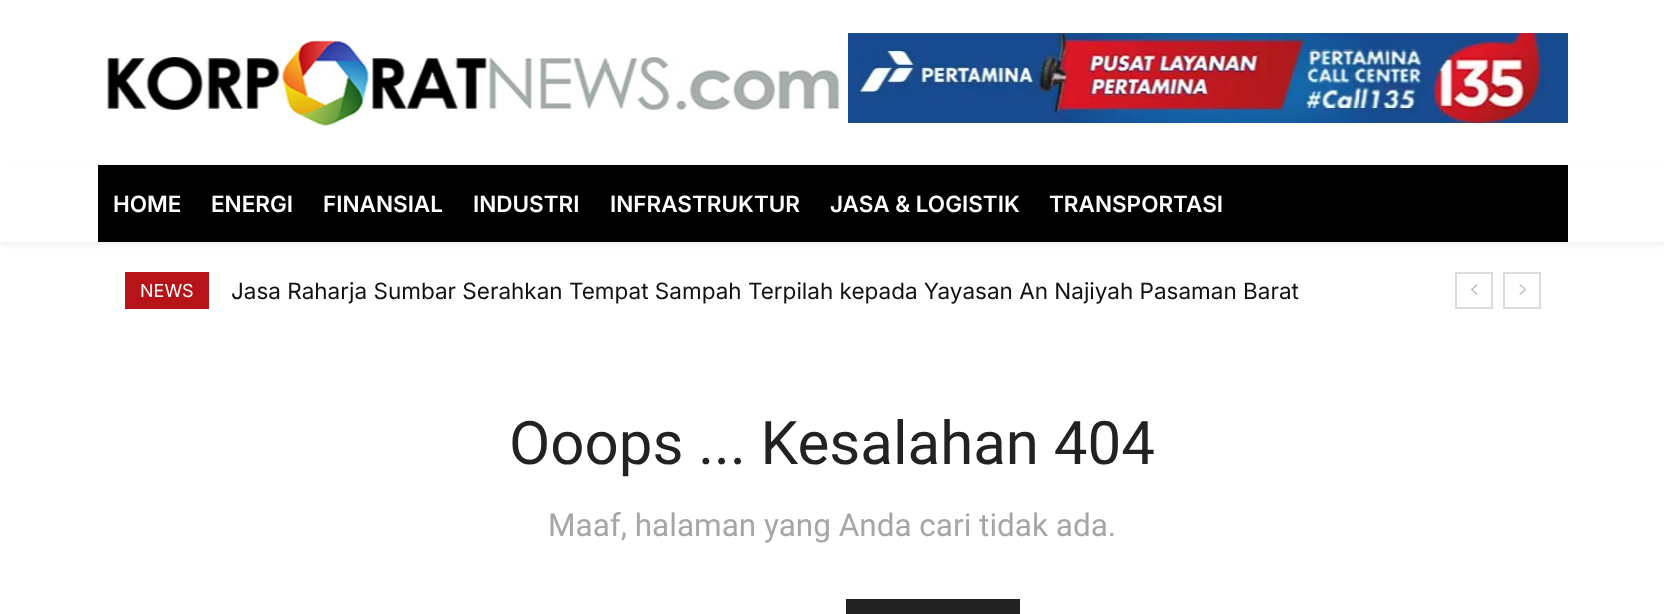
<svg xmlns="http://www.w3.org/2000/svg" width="1664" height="614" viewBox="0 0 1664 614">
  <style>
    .t1 { font: 600 22.5px Inter; fill: #fff; }
    .t2 { font: 18px Inter; fill: #fff; }
    .t3 { font: 22.5px Inter; fill: #111; }
    .t4 { font: 60px Roboto; fill: #222; }
    .t5 { font: 31.5px Roboto; fill: #a6a6a6; }
  </style>
  <defs>
    <clipPath id="clip1"><path d="M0 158H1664V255H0ZM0 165H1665V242H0Z" clip-rule="evenodd"/></clipPath>
  </defs>
  <rect width="100%" height="100%" fill="#fff"/>
  <image x="107" y="39" width="733" height="90" href="images/1.png"/>
  <image x="848" y="33" width="720" height="90" href="images/2.png"/>
  <g clip-path="url(#clip1)">
    <rect x="0" y="168" width="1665" height="77" fill="#0000000f" filter="blur(3px)"/>
  </g>
  <rect x="98" y="165" width="1470" height="77" fill="#000"/>
  <text x="113" y="212" class="t1">HOME</text>
  <text x="211" y="212" class="t1">ENERGI</text>
  <text x="323" y="212" class="t1">FINANSIAL</text>
  <text x="473" y="212" class="t1">INDUSTRI</text>
  <text x="610" y="212" class="t1">INFRASTRUKTUR</text>
  <text x="830" y="212" class="t1">JASA &amp; LOGISTIK</text>
  <text x="1049" y="212" class="t1">TRANSPORTASI</text>
  <rect x="125" y="272" width="84" height="37" fill="#b71419"/>
  <text x="140" y="297" class="t2">NEWS</text>
  <text x="231" y="299" class="t3">Jasa Raharja Sumbar Serahkan Tempat Sampah Terpilah kepada Yayasan An Najiyah Pasaman Barat</text>
  <rect x="1456" y="273" width="36" height="35" fill="none" stroke="#dcdcdc" stroke-width="2"/>
  <image x="1471" y="284" width="7" height="11" href="images/3.png"/>
  <rect x="1504" y="273" width="36" height="35" fill="none" stroke="#dcdcdc" stroke-width="2"/>
  <image x="1519" y="284" width="7" height="11" href="images/4.png"/>
  <text x="509" y="464" class="t4">Ooops ... Kesalahan 404</text>
  <text x="548" y="536" class="t5">Maaf, halaman yang Anda cari tidak ada.</text>
  <rect x="846" y="599" width="174" height="15" fill="#222"/>
</svg>
